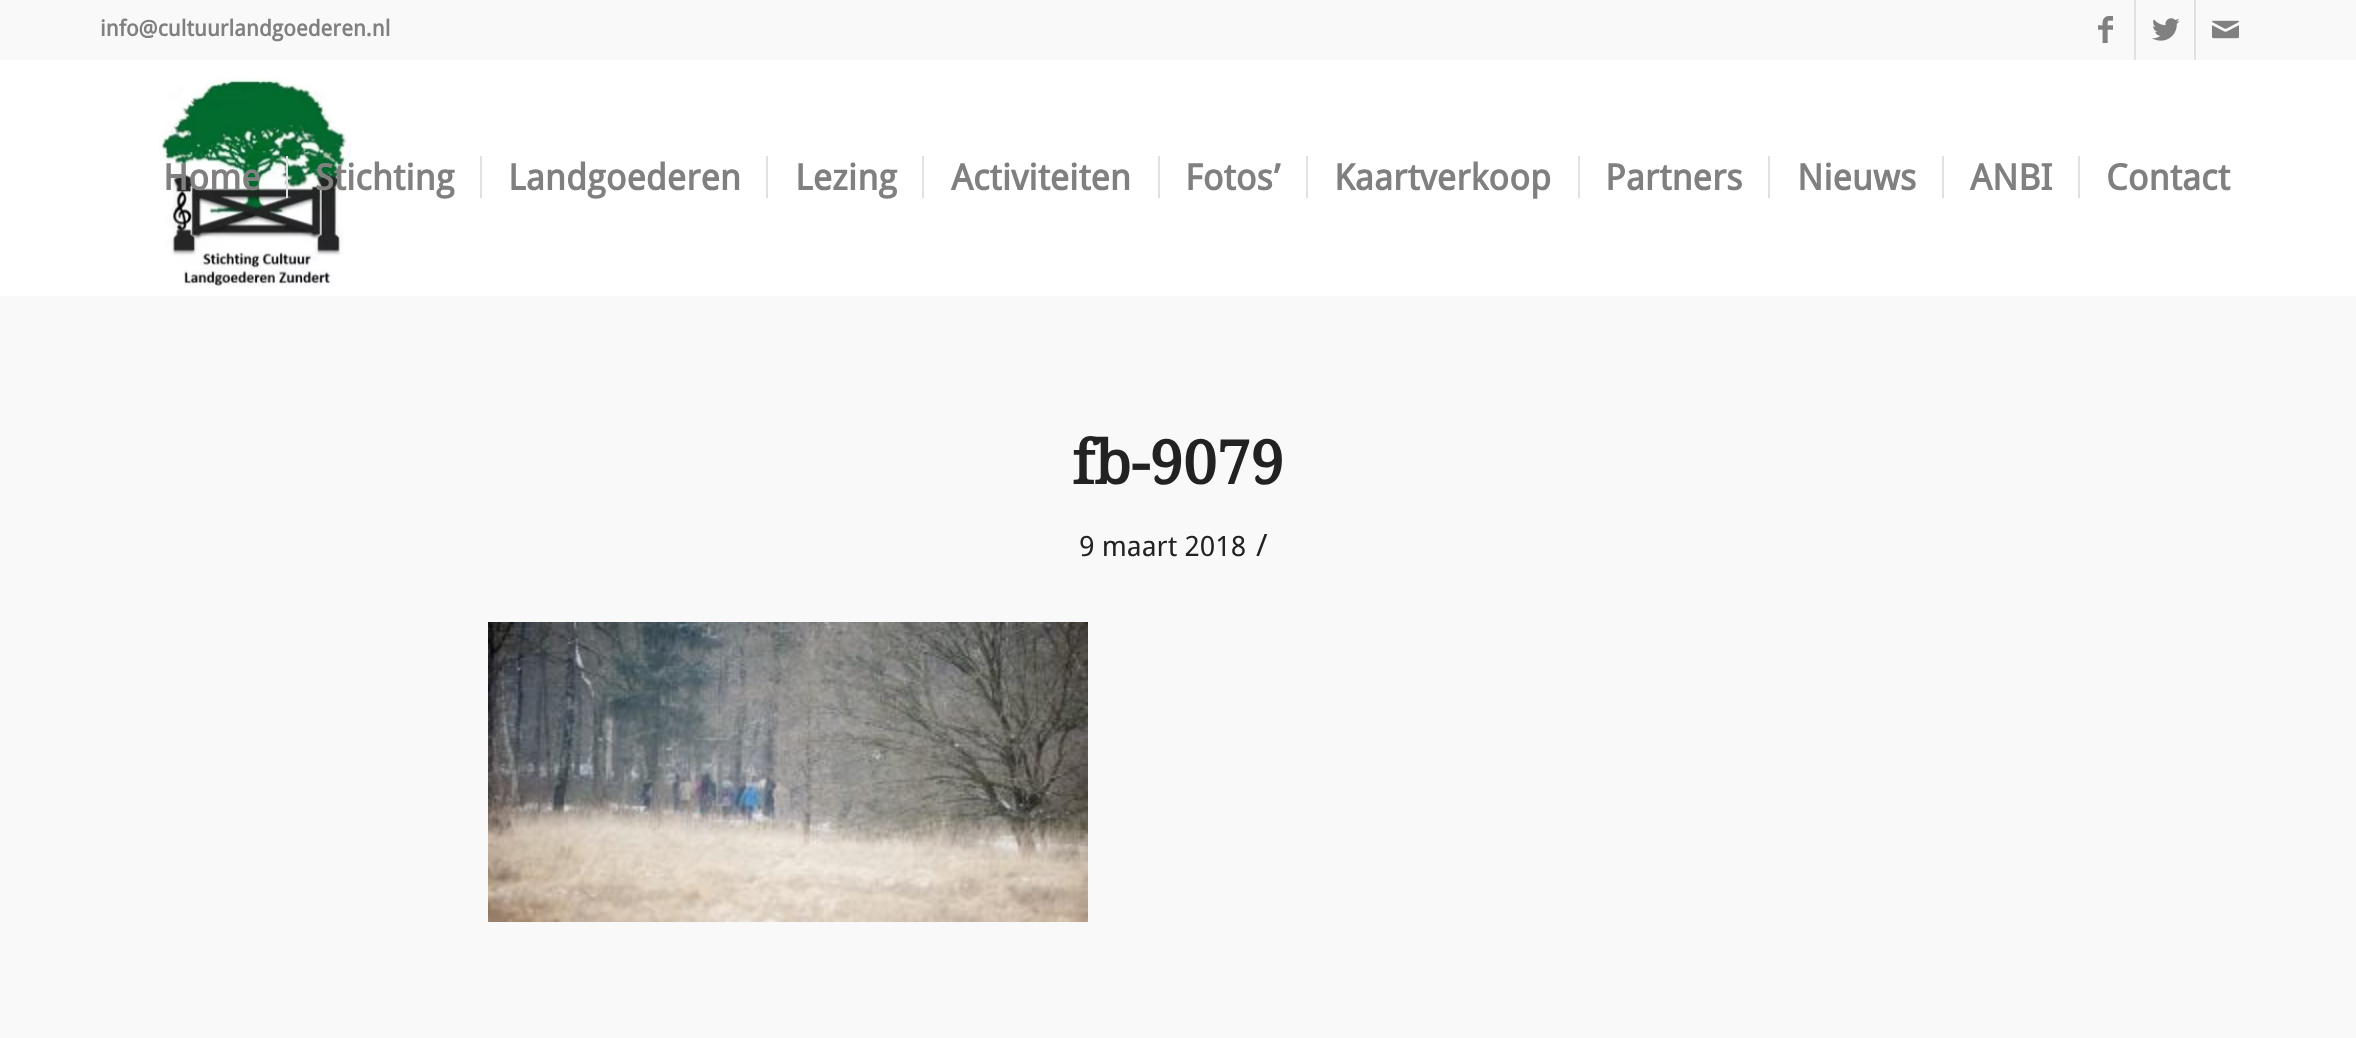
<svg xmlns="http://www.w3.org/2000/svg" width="2356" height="1038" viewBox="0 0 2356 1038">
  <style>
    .t1 { font: bold 22px Droid Sans; fill: #808080; }
    .t2 { font: bold 36px Droid Sans; fill: #808080; }
    .t3 { font: bold 60px Droid Serif; fill: #222; }
    .t4 { font: 28px Droid Sans; fill: #222; }
    .t5 { font: 31px Droid Sans; fill: #222; }
  </style>
  <rect width="100%" height="100%" fill="#f9f9f9"/>
  <text x="100" y="36" class="t1">info@cultuurlandgoederen.nl</text>
  <rect x="2134" y="0" width="2" height="60" fill="#e1e1e1"/>
  <image x="2098" y="16" width="15" height="27" href="images/1.png"/>
  <rect x="2194" y="0" width="2" height="60" fill="#e1e1e1"/>
  <image x="2152" y="18" width="28" height="23" href="images/2.png"/>
  <image x="2212" y="20" width="27" height="19" href="images/3.png"/>
  <rect x="0" y="60" width="2356" height="236" fill="#fff"/>
  <image x="159" y="77" width="192" height="210" href="images/4.png"/>
  <text x="163" y="190" class="t2">Home</text>
  <text x="315" y="190" class="t2">Stichting</text>
  <rect x="286" y="156" width="2" height="42" fill="#e1e1e1"/>
  <text x="508" y="190" class="t2">Landgoederen</text>
  <rect x="480" y="156" width="2" height="42" fill="#e1e1e1"/>
  <text x="795" y="190" class="t2">Lezing</text>
  <rect x="766" y="156" width="2" height="42" fill="#e1e1e1"/>
  <text x="951" y="190" class="t2">Activiteiten</text>
  <rect x="922" y="156" width="2" height="42" fill="#e1e1e1"/>
  <text x="1185" y="190" class="t2">Fotos’</text>
  <rect x="1158" y="156" width="2" height="42" fill="#e1e1e1"/>
  <text x="1334" y="190" class="t2">Kaartverkoop</text>
  <rect x="1306" y="156" width="2" height="42" fill="#e1e1e1"/>
  <text x="1605" y="190" class="t2">Partners</text>
  <rect x="1578" y="156" width="2" height="42" fill="#e1e1e1"/>
  <text x="1797" y="190" class="t2">Nieuws</text>
  <rect x="1768" y="156" width="2" height="42" fill="#e1e1e1"/>
  <text x="1970" y="190" class="t2">ANBI</text>
  <rect x="1942" y="156" width="2" height="42" fill="#e1e1e1"/>
  <text x="2106" y="190" class="t2">Contact</text>
  <rect x="2078" y="156" width="2" height="42" fill="#e1e1e1"/>
  <text x="1072" y="484" class="t3">fb-9079</text>
  <text x="1079" y="556" class="t4">9 maart 2018</text>
  <text x="1256" y="556" class="t5">/</text>
  <image x="488" y="622" width="600" height="300" href="images/5.png"/>
</svg>
